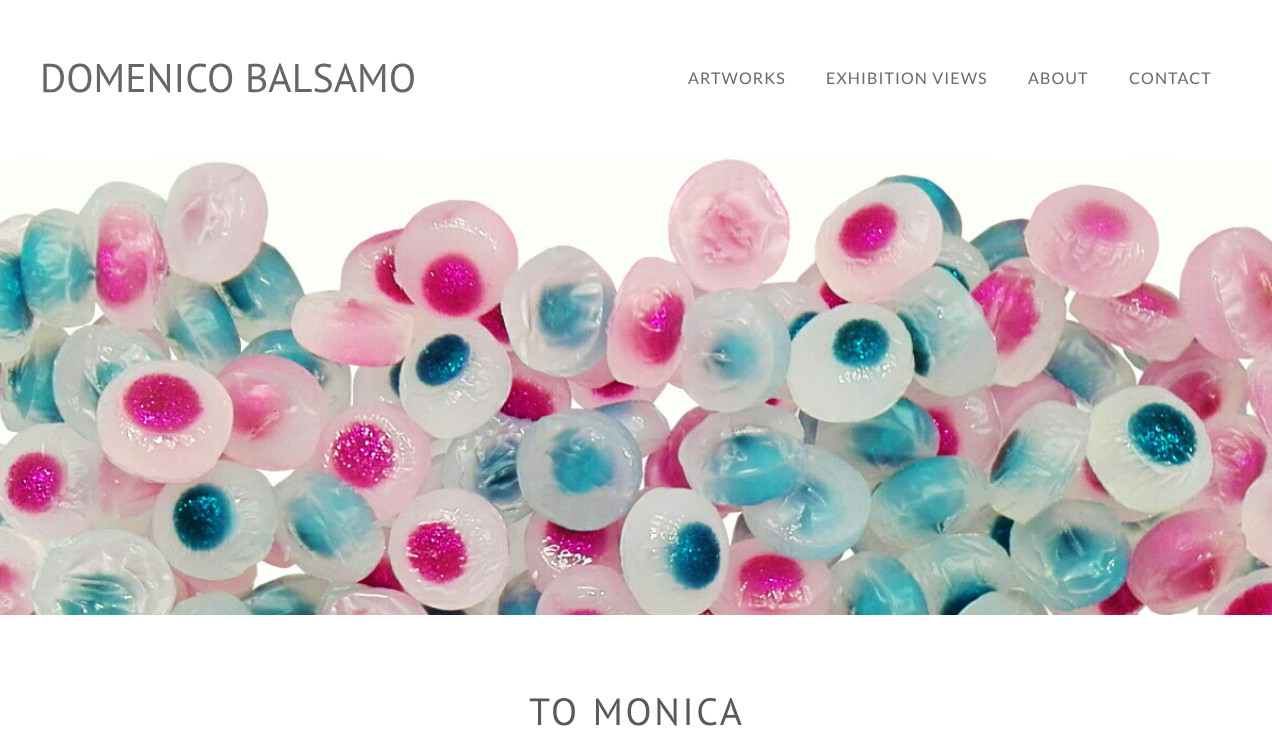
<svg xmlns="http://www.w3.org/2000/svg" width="1272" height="730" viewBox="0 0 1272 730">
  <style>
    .t1 { font: 40px PT Sans; fill: #666; }
    .t2 { font: 16px Lato; letter-spacing: 1.1px; fill: #6d686c; }
    .t3 { font: 38px PT Sans; letter-spacing: 2.75px; fill: #5b5a5a; }
  </style>
  <rect width="100%" height="100%" fill="#fff"/>
  <text x="40" y="92" class="t1">DOMENICO BALSAMO</text>
  <text x="688" y="84" class="t2">ARTWORKS</text>
  <text x="826" y="84" class="t2">EXHIBITION VIEWS</text>
  <text x="1028" y="84" class="t2">ABOUT</text>
  <text x="1129" y="84" class="t2">CONTACT</text>
  <image x="0" y="155" width="1272" height="460" href="images/1.png"/>
  <text x="529" y="725" class="t3">TO MONICA</text>
</svg>
